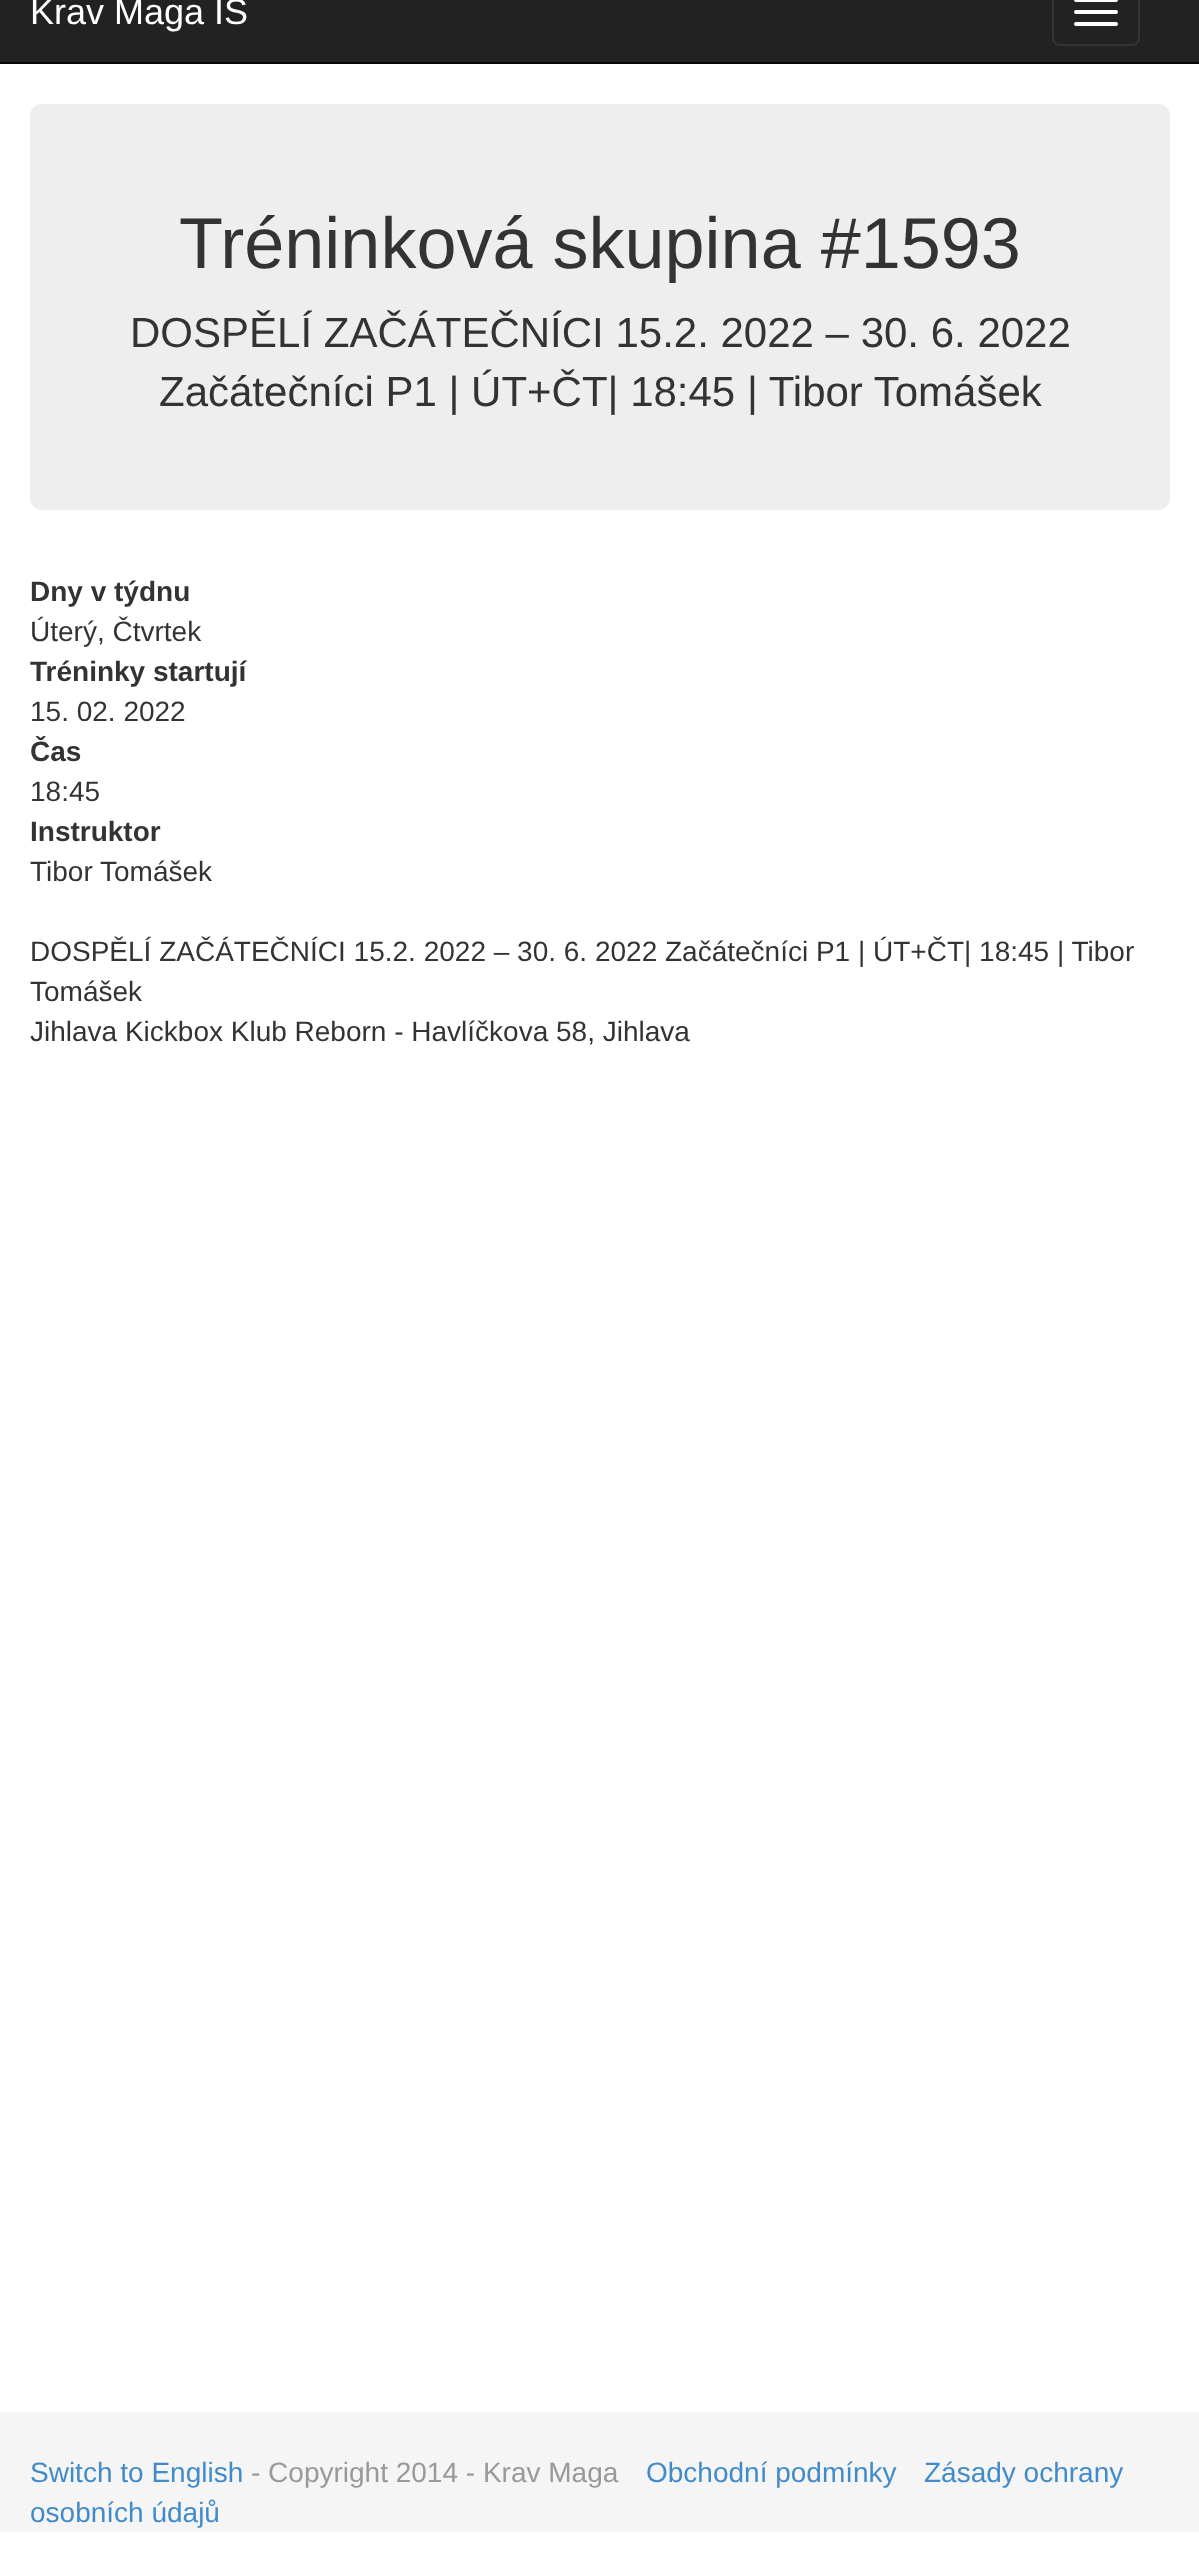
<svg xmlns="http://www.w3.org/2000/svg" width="1199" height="2569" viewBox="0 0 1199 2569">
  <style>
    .t1 { font: 36px Liberation Sans; fill: #fff; }
    .t2 { font: 72px Liberation Sans; fill: #333; }
    .t3 { font: 42px Liberation Sans; fill: #333; }
    .t4 { font: bold 28px Liberation Sans; fill: #333; }
    .t5 { font: 28px Liberation Sans; fill: #333; }
    .t6 { font: 28px Liberation Sans; fill: #428bca; }
    .t7 { font: 28px Liberation Sans; fill: #999; }
  </style>
  <rect width="100%" height="100%" fill="#fff"/>
  <rect x="0" y="0" width="1199" height="62" fill="#222"/>
  <rect x="0" y="62" width="1199" height="2" fill="#080808"/>
  <text x="30" y="24" class="t1">Krav Maga IS</text>
  <rect x="1053" y="-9" width="86" height="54" rx="7" fill="none" stroke="#333" stroke-width="2"/>
  <rect x="1074" y="-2" width="44" height="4" rx="2" fill="#fff"/>
  <rect x="1074" y="10" width="44" height="4" rx="2" fill="#fff"/>
  <rect x="1074" y="22" width="44" height="4" rx="2" fill="#fff"/>
  <rect x="30" y="104" width="1140" height="406" rx="12" fill="#eee"/>
  <text x="179" y="268" class="t2">Tréninková skupina #1593</text>
  <text x="130" y="347" class="t3">DOSPĚLÍ ZAČÁTEČNÍCI 15.2. 2022 – 30. 6. 2022</text>
  <text x="159" y="406" class="t3">Začátečníci P1 | ÚT+ČT| 18:45 | Tibor Tomášek</text>
  <text x="30" y="601" class="t4">Dny v týdnu</text>
  <text x="30" y="641" class="t5">Úterý, Čtvrtek</text>
  <text x="30" y="681" class="t4">Tréninky startují</text>
  <text x="30" y="721" class="t5">15. 02. 2022</text>
  <text x="30" y="761" class="t4">Čas</text>
  <text x="30" y="801" class="t5">18:45</text>
  <text x="30" y="841" class="t4">Instruktor</text>
  <text x="30" y="881" class="t5">Tibor Tomášek</text>
  <text x="30" y="961" class="t5">DOSPĚLÍ ZAČÁTEČNÍCI 15.2. 2022 – 30. 6. 2022 Začátečníci P1 | ÚT+ČT| 18:45 | Tibor</text>
  <text x="30" y="1001" class="t5">Tomášek</text>
  <text x="30" y="1041" class="t5">Jihlava Kickbox Klub Reborn - Havlíčkova 58, Jihlava</text>
  <rect x="0" y="2412" width="1199" height="120" fill="#f5f5f5"/>
  <text x="30" y="2482" class="t6">Switch to English</text>
  <text x="251" y="2482" class="t7">- Copyright 2014 - Krav Maga</text>
  <text x="646" y="2482" class="t6">Obchodní podmínky</text>
  <text x="924" y="2482" class="t6">Zásady ochrany</text>
  <text x="30" y="2522" class="t6">osobních údajů</text>
</svg>
